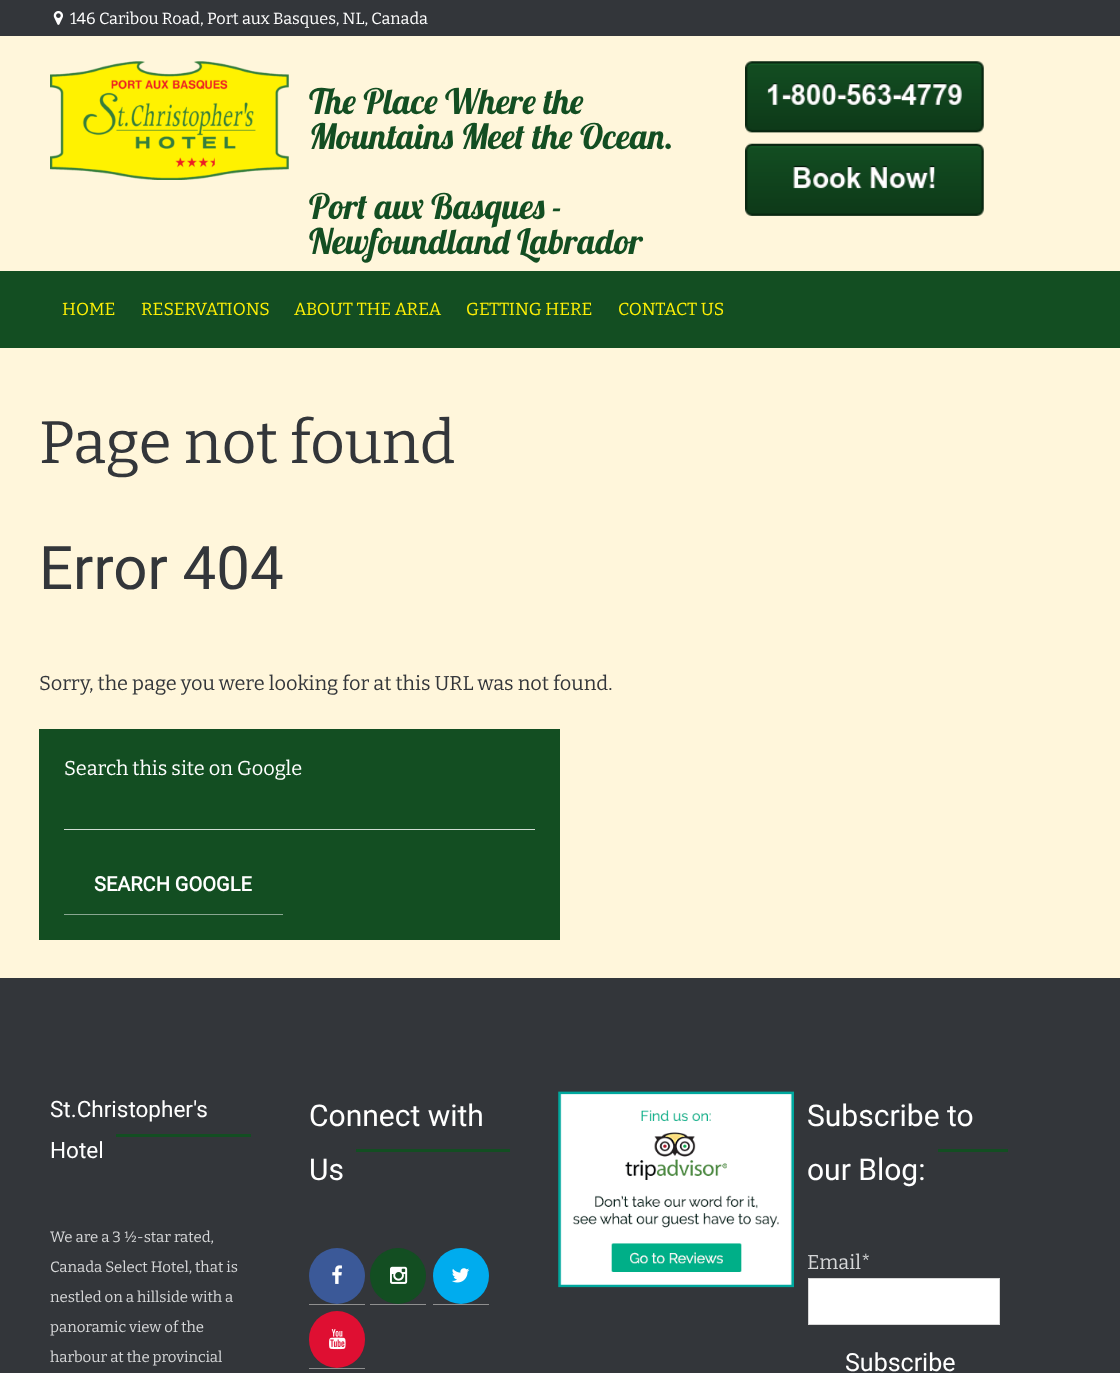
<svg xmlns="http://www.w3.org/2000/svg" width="1120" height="1373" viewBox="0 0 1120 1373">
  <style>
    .t1 { font: 100 16.25px Bitter; fill: #fff; }
    .t2 { font: 35px Lobster; fill: #134e22; }
    .t3 { font: 100 17.5px Bitter; fill: #fef006; }
    .t4 { font: 100 60px Bitter; fill: #33363a; }
    .t5 { font: 60px Roboto; fill: #33363a; }
    .t6 { font: 100 20px Bitter; fill: #33363a; }
    .t7 { font: 100 20px Bitter; fill: #fff; }
    .t8 { font: bold 20px Roboto; fill: #fff; }
    .t9 { font: 22.5px Roboto; fill: #fff; }
    .t10 { font: 100 15px Bitter; fill: #d6d7d8; }
    .t11 { font: 30px Roboto; fill: #fff; }
    .t12 { font: 100 20px Bitter; fill: #d6d7d8; }
    .t13 { font: 25px Roboto; fill: #fff; }
  </style>
  <rect width="100%" height="100%" fill="#fff6db"/>
  <rect x="0" y="0" width="1120" height="36" fill="#33363a"/>
  <image x="53" y="11" width="10" height="14" href="images/1.png"/>
  <text x="70" y="24" class="t1">146 Caribou Road, Port aux Basques, NL, Canada</text>
  <image x="50" y="61" width="239" height="119" href="images/2.png"/>
  <text x="309" y="114" class="t2">The Place Where the</text>
  <text x="309" y="149" class="t2">Mountains Meet the Ocean.</text>
  <text x="309" y="219" class="t2">Port aux Basques -</text>
  <text x="309" y="254" class="t2">Newfoundland Labrador</text>
  <image x="745" y="61" width="239" height="72" href="images/3.png"/>
  <image x="745" y="143" width="239" height="73" href="images/4.png"/>
  <rect x="0" y="271" width="1120" height="77" fill="#134e22"/>
  <text x="62" y="315" class="t3">HOME</text>
  <text x="141" y="315" class="t3">RESERVATIONS</text>
  <text x="294" y="315" class="t3">ABOUT THE AREA</text>
  <text x="466" y="315" class="t3">GETTING HERE</text>
  <text x="618" y="315" class="t3">CONTACT US</text>
  <text x="39" y="463" class="t4">Page not found</text>
  <text x="39" y="589" class="t5">Error 404</text>
  <text x="39" y="690" class="t6">Sorry, the page you were looking for at this URL was not found.</text>
  <rect x="39" y="729" width="521" height="211" fill="#134e22"/>
  <text x="64" y="775" class="t7">Search this site on Google</text>
  <rect x="64" y="829" width="471" height="1" fill="#d0dcd3"/>
  <rect x="64" y="914" width="219" height="1" fill="#89a791"/>
  <text x="94" y="891" class="t8">SEARCH GOOGLE</text>
  <rect x="0" y="978" width="1120" height="395" fill="#33363a"/>
  <text x="50" y="1117" class="t9">St.Christopher's</text>
  <rect x="116" y="1134" width="135" height="3" fill="#134e22"/>
  <text x="50" y="1158" class="t9">Hotel</text>
  <text x="50" y="1242" class="t10">We are a 3 ½-star rated,</text>
  <text x="50" y="1272" class="t10">Canada Select Hotel, that is</text>
  <text x="50" y="1302" class="t10">nestled on a hillside with a</text>
  <text x="50" y="1332" class="t10">panoramic view of the</text>
  <text x="50" y="1362" class="t10">harbour at the provincial</text>
  <text x="309" y="1126" class="t11">Connect with</text>
  <rect x="356" y="1149" width="154" height="3" fill="#134e22"/>
  <text x="309" y="1180" class="t11">Us</text>
  <rect x="309" y="1304" width="56" height="1" fill="#8f8f8f"/>
  <circle cx="337" cy="1276" r="28" fill="#3b5998"/>
  <image x="332" y="1265" width="10" height="19" href="images/5.png"/>
  <rect x="370" y="1304" width="56" height="1" fill="#8f8f8f"/>
  <circle cx="398" cy="1276" r="28" fill="#134e22"/>
  <image x="390" y="1266" width="18" height="18" href="images/6.png"/>
  <rect x="433" y="1304" width="56" height="1" fill="#8f8f8f"/>
  <circle cx="461" cy="1276" r="28" fill="#00acee"/>
  <image x="451" y="1268" width="19" height="15" href="images/7.png"/>
  <rect x="309" y="1368" width="56" height="1" fill="#8f8f8f"/>
  <rect x="309" y="1311" width="56" height="57" rx="28" fill="#df0f32"/>
  <image x="329" y="1329" width="17" height="21" href="images/8.png"/>
  <image x="558" y="1091" width="236" height="197" href="images/9.png"/>
  <text x="807" y="1126" class="t11">Subscribe to</text>
  <rect x="938" y="1149" width="70" height="3" fill="#134e22"/>
  <text x="807" y="1180" class="t11">our Blog:</text>
  <text x="807" y="1269" class="t12">Email*</text>
  <rect x="808.5" y="1278.5" width="191" height="46" fill="#fff" stroke="#d7d7d7"/>
  <text x="845" y="1371" class="t13">Subscribe</text>
</svg>
